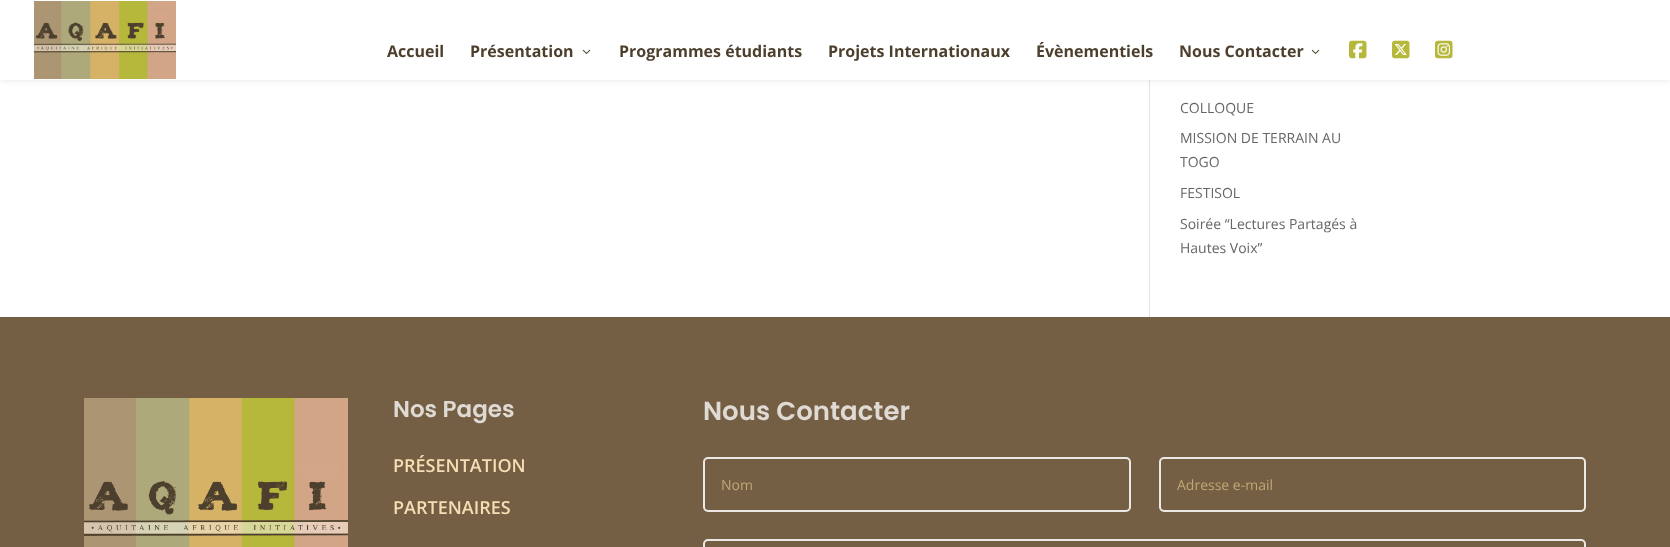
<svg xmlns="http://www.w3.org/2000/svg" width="1670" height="547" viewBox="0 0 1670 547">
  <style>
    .t1 { font: bold 16px Open Sans; fill: #4c3f2d; }
    .t2 { font: 14px Open Sans; fill: #666; }
    .t3 { font: 600 23px Poppins; fill: #dfdad4; }
    .t4 { font: 600 18px Open Sans; fill: #f5deb3; }
    .t5 { font: 600 26px Poppins; fill: #dfdad4; }
    .t6 { font: 14px Open Sans; fill: #bda874; }
  </style>
  <rect width="100%" height="100%" fill="#fff"/>
  <rect x="1149" y="80" width="1" height="237" fill="#e2e2e2"/>
  <rect x="0" y="0" width="1670" height="80" fill="#0000001a" filter="blur(3.5px)"/>
  <rect x="0" y="0" width="1670" height="80" fill="#fff"/>
  <image x="34" y="1" width="142" height="78" href="images/1.png"/>
  <text x="387" y="57" class="t1">Accueil</text>
  <text x="470" y="57" class="t1">Présentation</text>
  <image x="582" y="49" width="9" height="5" href="images/2.png"/>
  <text x="619" y="57" class="t1">Programmes étudiants</text>
  <text x="828" y="57" class="t1">Projets Internationaux</text>
  <text x="1036" y="57" class="t1">Évènementiels</text>
  <text x="1179" y="57" class="t1">Nous Contacter</text>
  <image x="1311" y="49" width="9" height="5" href="images/2.png"/>
  <image x="1349" y="40" width="18" height="19" href="images/3.png"/>
  <image x="1392" y="40" width="18" height="19" href="images/4.png"/>
  <image x="1435" y="40" width="18" height="19" href="images/5.png"/>
  <text x="1180" y="113" class="t2">COLLOQUE</text>
  <text x="1180" y="143" class="t2">MISSION DE TERRAIN AU</text>
  <text x="1180" y="167" class="t2">TOGO</text>
  <text x="1180" y="198" class="t2">FESTISOL</text>
  <text x="1180" y="229" class="t2">Soirée “Lectures Partagés à</text>
  <text x="1180" y="253" class="t2">Hautes Voix”</text>
  <rect x="0" y="317" width="1670" height="230" fill="#745f44"/>
  <image x="84" y="398" width="264" height="149" href="images/6.png"/>
  <text x="393" y="417" class="t3">Nos Pages</text>
  <text x="393" y="472" class="t4">PRÉSENTATION</text>
  <text x="393" y="514" class="t4">PARTENAIRES</text>
  <text x="703" y="420" class="t5">Nous Contacter</text>
  <rect x="704" y="458" width="426" height="53" rx="4" fill="none" stroke="#ece9e5" stroke-width="2"/>
  <text x="721" y="490" class="t6">Nom</text>
  <rect x="1160" y="458" width="425" height="53" rx="4" fill="none" stroke="#ece9e5" stroke-width="2"/>
  <text x="1177" y="490" class="t6">Adresse e-mail</text>
  <rect x="704" y="540" width="881" height="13" rx="4" fill="none" stroke="#ece9e5" stroke-width="2"/>
</svg>
